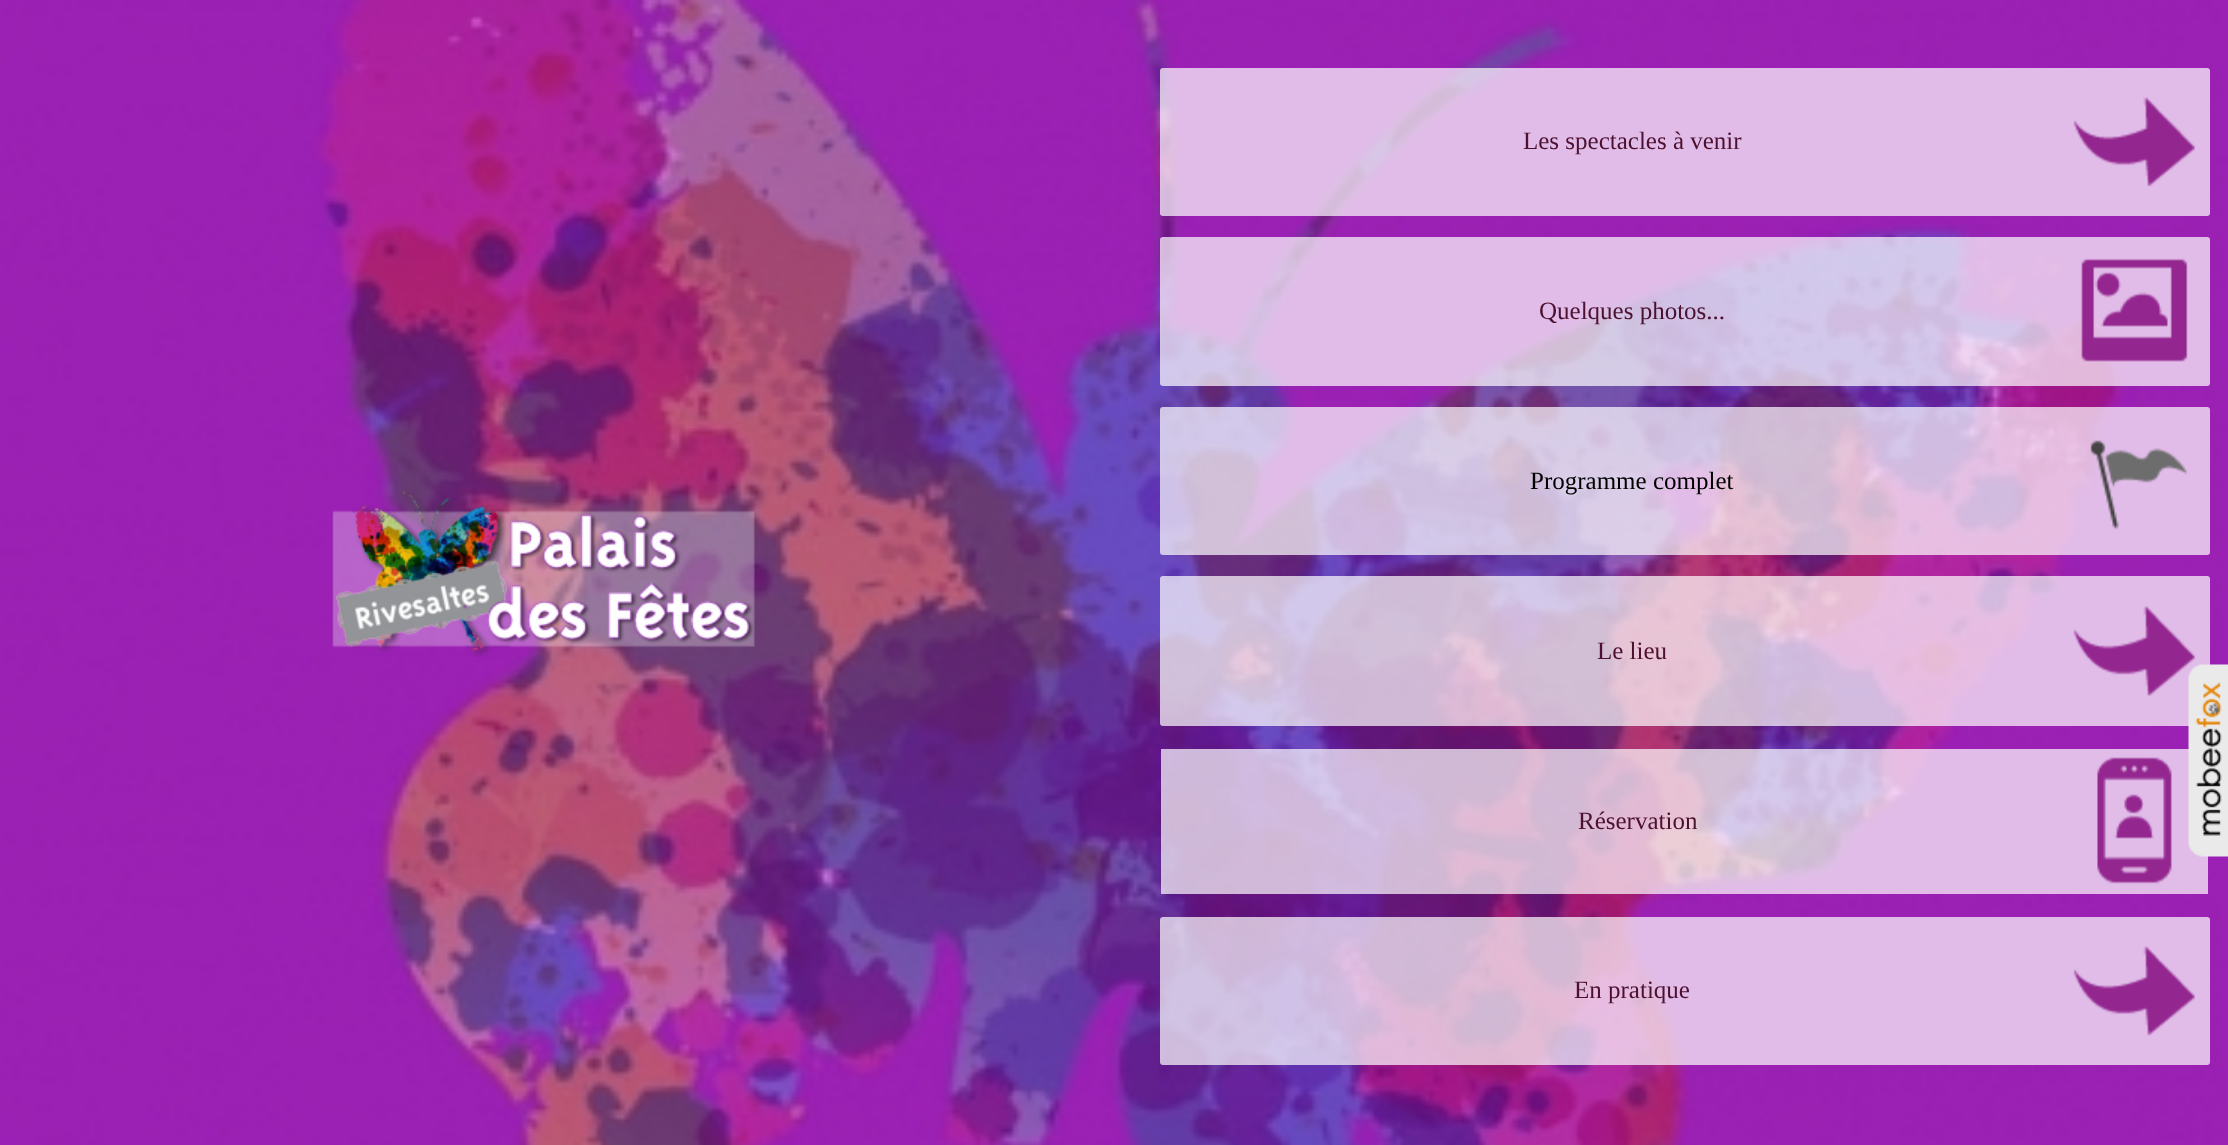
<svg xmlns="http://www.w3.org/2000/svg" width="2228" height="1145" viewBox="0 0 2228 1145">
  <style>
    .t1 { font: 25px Liberation Serif; fill: #4c1130; }
    .t2 { font: 25px Liberation Serif; fill: #000; }
  </style>
  <rect width="100%" height="100%" fill="#fff"/>
  <image x="0" y="0" width="2228" height="1145" href="images/1.png"/>
  <image x="332" y="490" width="424" height="167" href="images/2.png"/>
  <rect x="1160" y="68" width="1050" height="148" rx="3" fill="#ffffffb3"/>
  <text x="1523" y="149" class="t1">Les spectacles à venir</text>
  <image x="2073" y="97" width="122" height="90" href="images/3.png"/>
  <rect x="1160" y="237" width="1050" height="149" rx="3" fill="#ffffffb3"/>
  <text x="1539" y="319" class="t1">Quelques photos...</text>
  <image x="2081" y="258" width="107" height="104" href="images/4.png"/>
  <rect x="1160" y="407" width="1050" height="148" rx="3" fill="#ffffffb3"/>
  <text x="1530" y="489" class="t2">Programme complet</text>
  <image x="2090" y="440" width="98" height="90" href="images/5.png"/>
  <rect x="1160" y="576" width="1050" height="150" rx="3" fill="#ffffffb3"/>
  <text x="1597" y="659" class="t1">Le lieu</text>
  <image x="2073" y="606" width="122" height="90" href="images/6.png"/>
  <rect x="1161" y="749" width="1047" height="145" fill="#ffffffb3"/>
  <text x="1578" y="829" class="t1">Réservation</text>
  <image x="2097" y="757" width="75" height="127" href="images/7.png"/>
  <rect x="1160" y="917" width="1050" height="148" rx="3" fill="#ffffffb3"/>
  <text x="1574" y="998" class="t1">En pratique</text>
  <image x="2073" y="946" width="122" height="90" href="images/8.png"/>
  <image x="2188" y="664" width="40" height="193" href="images/9.png"/>
</svg>
